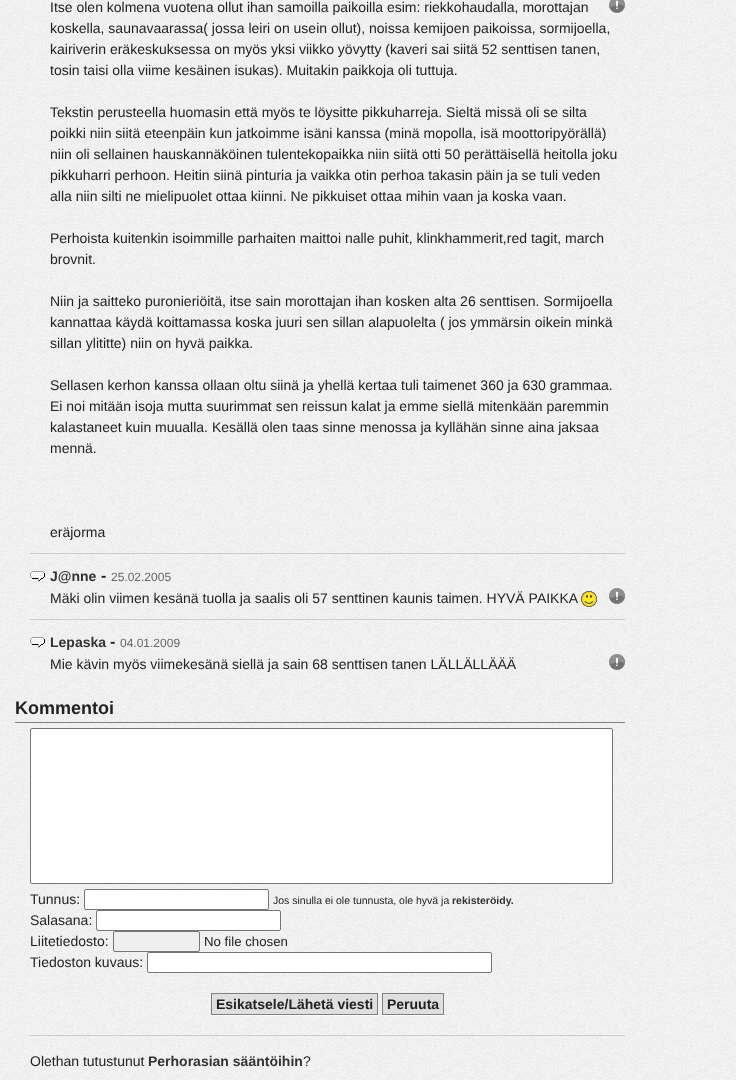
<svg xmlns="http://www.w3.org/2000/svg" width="736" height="1080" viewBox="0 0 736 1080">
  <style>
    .t1 { font: 14px Liberation Sans; fill: #222; }
    .t2 { font: bold 14px Liberation Sans; fill: #333; }
    .t3 { font: bold 16px Liberation Sans; fill: #222; }
    .t4 { font: 12px Liberation Sans; fill: #666; }
    .t5 { font: bold 18px Liberation Sans; fill: #222; }
    .t6 { font: 10.5px Liberation Sans; fill: #222; }
    .t7 { font: bold 10.5px Liberation Sans; fill: #333; }
    .t8 { font: 13.25px Liberation Sans; fill: #222; }
    .t9 { font: bold 14px Liberation Sans; fill: #222; }
  </style>
  <rect width="100%" height="100%" fill="#fff"/>
  <image x="0" y="0" width="736" height="1080" href="images/1.png"/>
  <image x="609" y="0" width="16" height="13" href="images/2.png"/>
  <text x="50" y="12" class="t1">Itse olen kolmena vuotena ollut ihan samoilla paikoilla esim: riekkohaudalla, morottajan</text>
  <text x="50" y="33" class="t1">koskella, saunavaarassa( jossa leiri on usein ollut), noissa kemijoen paikoissa, sormijoella,</text>
  <text x="50" y="54" class="t1">kairiverin eräkeskuksessa on myös yksi viikko yövytty (kaveri sai siitä 52 senttisen tanen,</text>
  <text x="50" y="75" class="t1">tosin taisi olla viime kesäinen isukas). Muitakin paikkoja oli tuttuja.</text>
  <text x="50" y="117" class="t1">Tekstin perusteella huomasin että myös te löysitte pikkuharreja. Sieltä missä oli se silta</text>
  <text x="50" y="138" class="t1">poikki niin siitä eteenpäin kun jatkoimme isäni kanssa (minä mopolla, isä moottoripyörällä)</text>
  <text x="50" y="159" class="t1">niin oli sellainen hauskannäköinen tulentekopaikka niin siitä otti 50 perättäisellä heitolla joku</text>
  <text x="50" y="180" class="t1">pikkuharri perhoon. Heitin siinä pinturia ja vaikka otin perhoa takasin päin ja se tuli veden</text>
  <text x="50" y="201" class="t1">alla niin silti ne mielipuolet ottaa kiinni. Ne pikkuiset ottaa mihin vaan ja koska vaan.</text>
  <text x="50" y="243" class="t1">Perhoista kuitenkin isoimmille parhaiten maittoi nalle puhit, klinkhammerit,red tagit, march</text>
  <text x="50" y="264" class="t1">brovnit.</text>
  <text x="50" y="306" class="t1">Niin ja saitteko puronieriöitä, itse sain morottajan ihan kosken alta 26 senttisen. Sormijoella</text>
  <text x="50" y="327" class="t1">kannattaa käydä koittamassa koska juuri sen sillan alapuolelta ( jos ymmärsin oikein minkä</text>
  <text x="50" y="348" class="t1">sillan ylititte) niin on hyvä paikka.</text>
  <text x="50" y="390" class="t1">Sellasen kerhon kanssa ollaan oltu siinä ja yhellä kertaa tuli taimenet 360 ja 630 grammaa.</text>
  <text x="50" y="411" class="t1">Ei noi mitään isoja mutta suurimmat sen reissun kalat ja emme siellä mitenkään paremmin</text>
  <text x="50" y="432" class="t1">kalastaneet kuin muualla. Kesällä olen taas sinne menossa ja kyllähän sinne aina jaksaa</text>
  <text x="50" y="453" class="t1">mennä.</text>
  <text x="50" y="537" class="t1">eräjorma</text>
  <rect x="30" y="553" width="595" height="1" fill="#ccc"/>
  <image x="30" y="571" width="15" height="11" href="images/3.png"/>
  <text x="50" y="581" class="t2">J@nne</text>
  <text x="101" y="581" class="t3">-</text>
  <text x="111" y="581" class="t4">25.02.2005</text>
  <text x="50" y="603" class="t1">Mäki olin viimen kesänä tuolla ja saalis oli 57 senttinen kaunis taimen. HYVÄ PAIKKA</text>
  <image x="581" y="591" width="16" height="16" href="images/4.png"/>
  <image x="609" y="588" width="16" height="16" href="images/5.png"/>
  <rect x="30" y="619" width="595" height="1" fill="#ccc"/>
  <image x="30" y="637" width="15" height="11" href="images/6.png"/>
  <text x="50" y="647" class="t2">Lepaska</text>
  <text x="110" y="647" class="t3">-</text>
  <text x="120" y="647" class="t4">04.01.2009</text>
  <text x="50" y="669" class="t1">Mie kävin myös viimekesänä siellä ja sain 68 senttisen tanen LÄLLÄLLÄÄÄ</text>
  <image x="609" y="654" width="16" height="16" href="images/7.png"/>
  <rect x="15" y="722" width="610" height="1" fill="#808080"/>
  <text x="15" y="714" class="t5">Kommentoi</text>
  <rect x="30.5" y="728.5" width="582" height="155" rx="1.5" fill="#fff" stroke="#767676"/>
  <text x="30" y="904" class="t1">Tunnus:</text>
  <rect x="84.5" y="889.5" width="184" height="20" rx="1.5" fill="#fff" stroke="#767676"/>
  <text x="273" y="904" class="t6">Jos sinulla ei ole tunnusta, ole hyvä ja</text>
  <text x="452" y="904" class="t7">rekisteröidy.</text>
  <text x="30" y="925" class="t1">Salasana:</text>
  <rect x="96.5" y="910.5" width="184" height="20" rx="1.5" fill="#fff" stroke="#767676"/>
  <text x="30" y="946" class="t1">Liitetiedosto:</text>
  <rect x="113.5" y="931.5" width="86" height="20" rx="1.5" fill="#efefef" stroke="#767676"/>
  <text x="204" y="946" class="t8">No file chosen</text>
  <text x="30" y="967" class="t1">Tiedoston kuvaus:</text>
  <rect x="147.5" y="952.5" width="344" height="20" rx="1.5" fill="#fff" stroke="#767676"/>
  <rect x="211" y="1015" width="167" height="1" fill="#fff"/>
  <rect x="211.5" y="993.5" width="166" height="21" fill="#dfdfdf" stroke="#808080"/>
  <text x="216" y="1009" class="t9">Esikatsele/Lähetä viesti</text>
  <rect x="382" y="1015" width="62" height="1" fill="#fff"/>
  <rect x="382.5" y="993.5" width="61" height="21" fill="#dfdfdf" stroke="#808080"/>
  <text x="387" y="1009" class="t9">Peruuta</text>
  <rect x="30" y="1035" width="595" height="1" fill="#ccc"/>
  <text x="30" y="1066" class="t1">Olethan tutustunut</text>
  <text x="148" y="1066" class="t2">Perhorasian sääntöihin</text>
  <text x="303" y="1066" class="t1">?</text>
</svg>
